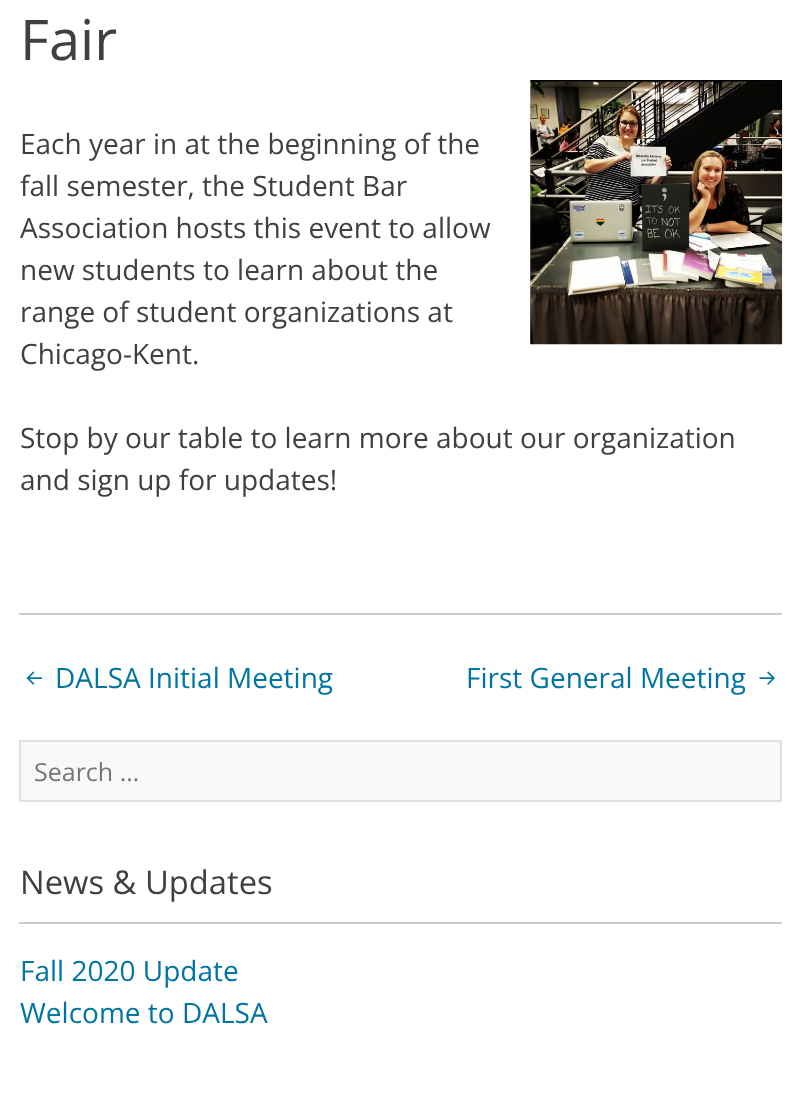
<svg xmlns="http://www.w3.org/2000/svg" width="800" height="1105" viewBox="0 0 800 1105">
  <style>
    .t1 { font: 56px Open Sans; fill: #404040; }
    .t2 { font: 28px Open Sans; fill: #404040; }
    .t3 { font: 28px Open Sans; fill: #0074a2; }
    .t4 { font: 25px Open Sans; fill: #757575; }
    .t5 { font: 32.75px Open Sans; fill: #404040; }
  </style>
  <rect width="100%" height="100%" fill="#fff"/>
  <rect x="19" y="613" width="763" height="2" fill="#ccc"/>
  <text x="20" y="60" class="t1">Fair</text>
  <image x="530" y="80" width="253" height="265" href="images/1.png"/>
  <text x="20" y="154" class="t2">Each year in at the beginning of the</text>
  <text x="20" y="196" class="t2">fall semester, the Student Bar</text>
  <text x="20" y="238" class="t2">Association hosts this event to allow</text>
  <text x="20" y="280" class="t2">new students to learn about the</text>
  <text x="20" y="322" class="t2">range of student organizations at</text>
  <text x="20" y="364" class="t2">Chicago-Kent.</text>
  <text x="20" y="448" class="t2">Stop by our table to learn more about our organization</text>
  <text x="20" y="490" class="t2">and sign up for updates!</text>
  <image x="26" y="671" width="16" height="14" href="images/2.png"/>
  <text x="55" y="688" class="t3">DALSA Initial Meeting</text>
  <text x="466" y="688" class="t3">First General Meeting</text>
  <image x="759" y="671" width="16" height="14" href="images/3.png"/>
  <rect x="20" y="741" width="761" height="60" fill="#f8f8f8" stroke="#e0e0e0" stroke-width="2"/>
  <text x="34" y="781" class="t4">Search …</text>
  <rect x="19" y="922" width="763" height="2" fill="#ccc"/>
  <text x="20" y="894" class="t5">News &amp; Updates</text>
  <text x="20" y="981" class="t3">Fall 2020 Update</text>
  <text x="20" y="1023" class="t3">Welcome to DALSA</text>
</svg>
